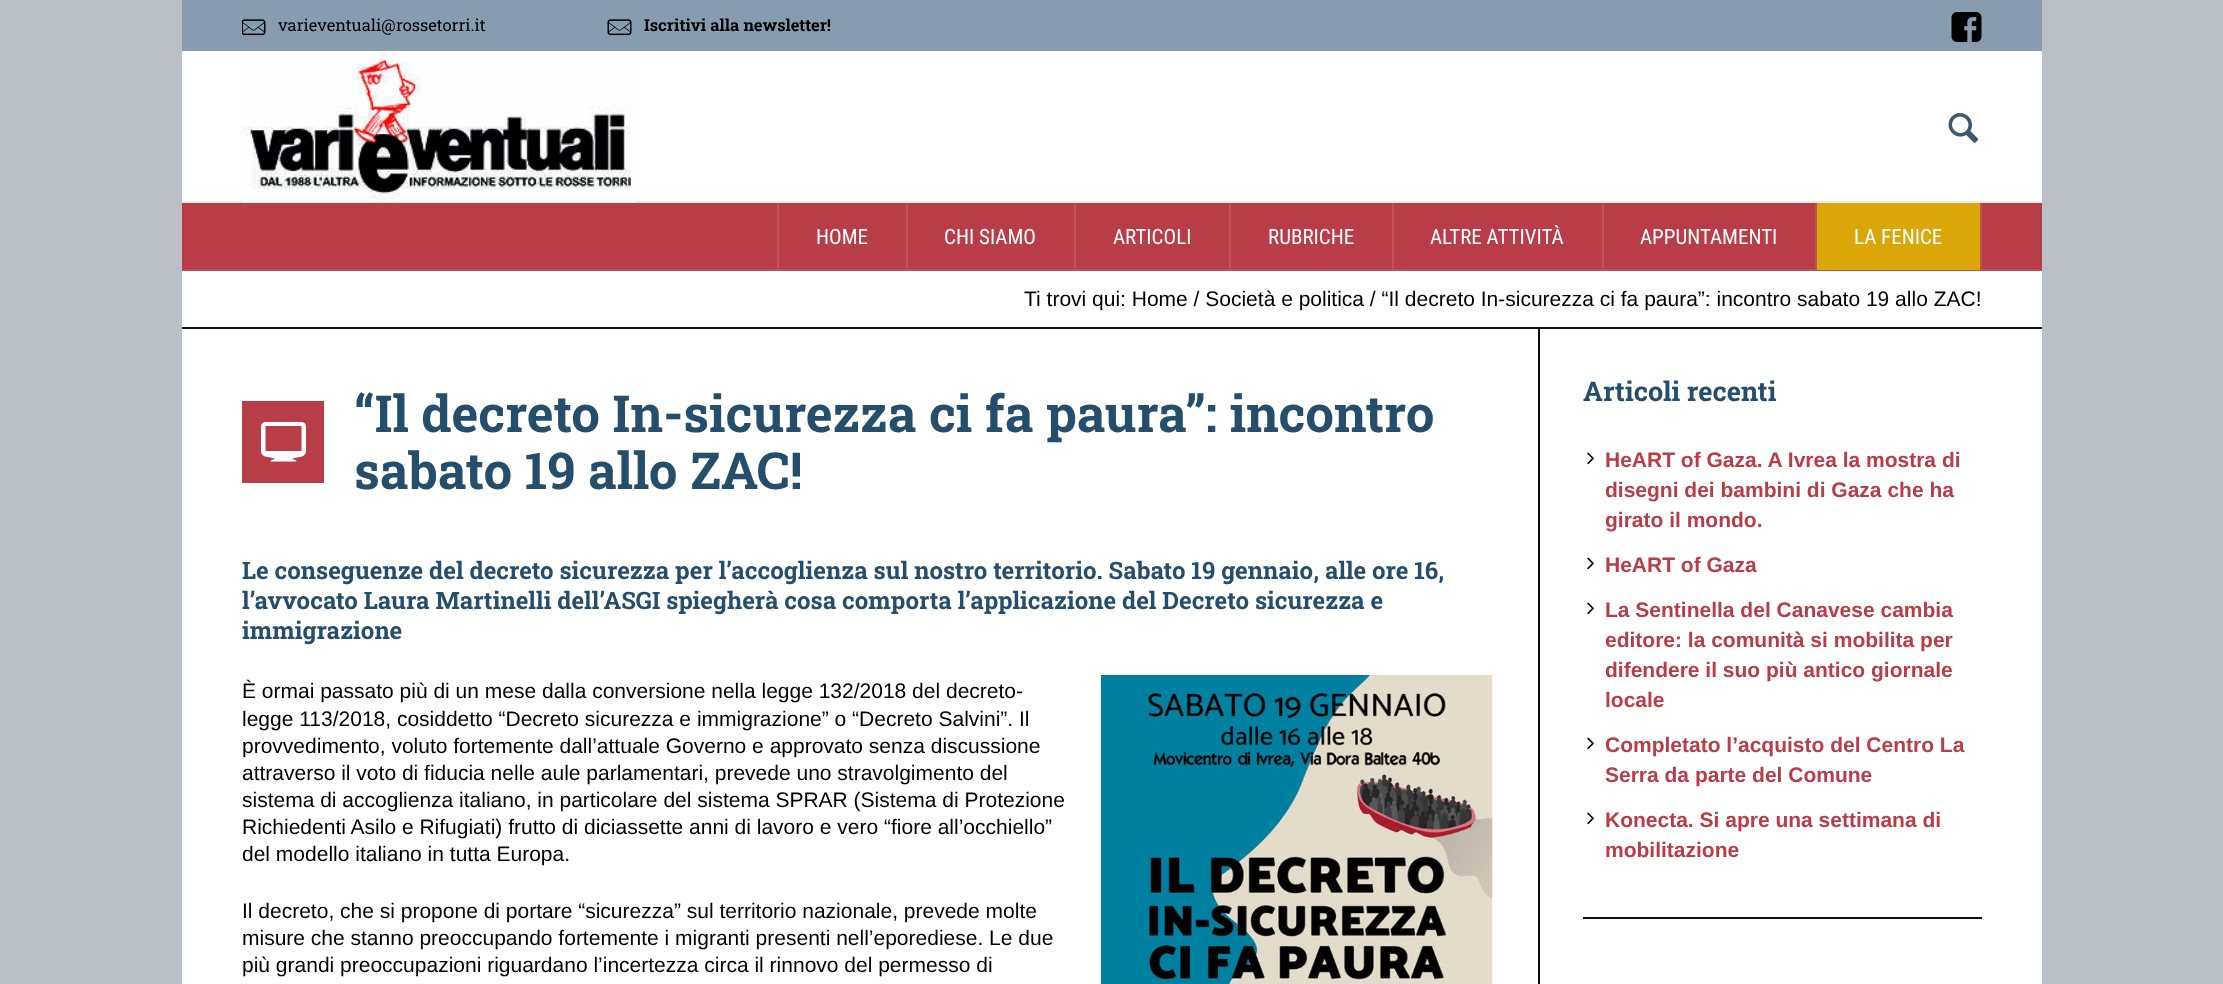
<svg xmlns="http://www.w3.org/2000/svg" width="2223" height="984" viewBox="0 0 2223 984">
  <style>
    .t1 { font: 16.5px Roboto Slab; fill: #000; }
    .t2 { font: bold 16.5px Roboto Slab; fill: #000; }
    .t3 { font: 21px Roboto Condensed; fill: #fcfcfc; }
    .t4 { font: 21px Liberation Sans; fill: #000; }
    .t5 { font: bold 51px Roboto Slab; fill: #254e6d; }
    .t6 { font: bold 24px Roboto Slab; fill: #254e6d; }
    .t7 { font: bold 27px Roboto Slab; fill: #254e6d; }
    .t8 { font: bold 21px Liberation Sans; fill: #b83d46; }
  </style>
  <rect width="100%" height="100%" fill="#bac0c6"/>
  <rect x="182" y="0" width="1860" height="51" fill="#879cae"/>
  <rect x="182" y="51" width="1860" height="150" fill="#fff"/>
  <image x="242" y="19" width="24" height="17" href="images/1.png"/>
  <text x="278" y="31" class="t1">varieventuali@rossetorri.it</text>
  <image x="607" y="19" width="25" height="17" href="images/2.png"/>
  <text x="644" y="31" class="t2">Iscritivi alla newsletter!</text>
  <image x="1951" y="12" width="31" height="30" href="images/3.png"/>
  <rect x="182" y="201" width="1860" height="2" fill="#ebebeb"/>
  <image x="241" y="52" width="395" height="151" href="images/4.png"/>
  <image x="1948" y="113" width="31" height="30" href="images/5.png"/>
  <rect x="182" y="203" width="1860" height="66" fill="#b83d46"/>
  <rect x="182" y="269" width="1860" height="2" fill="#bf5058"/>
  <rect x="906" y="203" width="2" height="67" fill="#bf5058"/>
  <rect x="777" y="203" width="2" height="67" fill="#bf5058"/>
  <text x="816" y="244" class="t3">HOME</text>
  <rect x="1074" y="203" width="2" height="67" fill="#bf5058"/>
  <text x="944" y="244" class="t3">CHI SIAMO</text>
  <rect x="1229" y="203" width="2" height="67" fill="#bf5058"/>
  <text x="1113" y="244" class="t3">ARTICOLI</text>
  <rect x="1392" y="203" width="2" height="67" fill="#bf5058"/>
  <text x="1268" y="244" class="t3">RUBRICHE</text>
  <rect x="1602" y="203" width="2" height="67" fill="#bf5058"/>
  <text x="1430" y="244" class="t3">ALTRE ATTIVITÀ</text>
  <rect x="1815" y="203" width="2" height="67" fill="#bf5058"/>
  <text x="1640" y="244" class="t3">APPUNTAMENTI</text>
  <rect x="1817" y="203" width="163" height="67" fill="#dba608"/>
  <rect x="1980" y="203" width="2" height="67" fill="#bf5058"/>
  <text x="1854" y="244" class="t3">LA FENICE</text>
  <rect x="182" y="271" width="1860" height="56" fill="#fff"/>
  <rect x="182" y="327" width="1860" height="2" fill="#0f0e0e"/>
  <text x="1024" y="306" class="t4">Ti trovi qui: Home / Società e politica / “Il decreto In-sicurezza ci fa paura”: incontro sabato 19 allo ZAC!</text>
  <rect x="182" y="329" width="1860" height="655" fill="#fff"/>
  <rect x="242" y="401" width="82" height="82" fill="#b83d46"/>
  <image x="261" y="421" width="45" height="41" href="images/6.png"/>
  <text x="354" y="432" class="t5">“Il decreto In-sicurezza ci fa paura”: incontro</text>
  <text x="354" y="489" class="t5">sabato 19 allo ZAC!</text>
  <text x="242" y="579" class="t6">Le conseguenze del decreto sicurezza per l’accoglienza sul nostro territorio. Sabato 19 gennaio, alle ore 16,</text>
  <text x="242" y="609" class="t6">l’avvocato Laura Martinelli dell’ASGI spiegherà cosa comporta l’applicazione del Decreto sicurezza e</text>
  <text x="242" y="639" class="t6">immigrazione</text>
  <text x="242" y="698" class="t4">È ormai passato più di un mese dalla conversione nella legge 132/2018 del decreto-</text>
  <image x="1101" y="675" width="392" height="309" href="images/7.png"/>
  <text x="242" y="726" class="t4">legge 113/2018, cosiddetto “Decreto sicurezza e immigrazione” o “Decreto Salvini”. Il</text>
  <text x="242" y="753" class="t4">provvedimento, voluto fortemente dall’attuale Governo e approvato senza discussione</text>
  <text x="242" y="780" class="t4">attraverso il voto di fiducia nelle aule parlamentari, prevede uno stravolgimento del</text>
  <text x="242" y="807" class="t4">sistema di accoglienza italiano, in particolare del sistema SPRAR (Sistema di Protezione</text>
  <text x="242" y="834" class="t4">Richiedenti Asilo e Rifugiati) frutto di diciassette anni di lavoro e vero “fiore all’occhiello”</text>
  <text x="242" y="861" class="t4">del modello italiano in tutta Europa.</text>
  <text x="242" y="918" class="t4">Il decreto, che si propone di portare “sicurezza” sul territorio nazionale, prevede molte</text>
  <text x="242" y="945" class="t4">misure che stanno preoccupando fortemente i migranti presenti nell’eporediese. Le due</text>
  <text x="242" y="972" class="t4">più grandi preoccupazioni riguardano l’incertezza circa il rinnovo del permesso di</text>
  <rect x="1538" y="329" width="2" height="655" fill="#0f0e0e"/>
  <rect x="1583" y="917" width="399" height="2" fill="#0f0e0e"/>
  <text x="1583" y="401" class="t7">Articoli recenti</text>
  <image x="1587" y="452" width="7" height="13" href="images/8.png"/>
  <text x="1605" y="467" class="t8">HeART of Gaza. A Ivrea la mostra di</text>
  <text x="1605" y="497" class="t8">disegni dei bambini di Gaza che ha</text>
  <text x="1605" y="527" class="t8">girato il mondo.</text>
  <image x="1587" y="557" width="7" height="13" href="images/8.png"/>
  <text x="1605" y="572" class="t8">HeART of Gaza</text>
  <image x="1587" y="602" width="7" height="13" href="images/8.png"/>
  <text x="1605" y="617" class="t8">La Sentinella del Canavese cambia</text>
  <text x="1605" y="647" class="t8">editore: la comunità si mobilita per</text>
  <text x="1605" y="677" class="t8">difendere il suo più antico giornale</text>
  <text x="1605" y="707" class="t8">locale</text>
  <image x="1587" y="737" width="7" height="13" href="images/8.png"/>
  <text x="1605" y="752" class="t8">Completato l’acquisto del Centro La</text>
  <text x="1605" y="782" class="t8">Serra da parte del Comune</text>
  <image x="1587" y="812" width="7" height="13" href="images/8.png"/>
  <text x="1605" y="827" class="t8">Konecta. Si apre una settimana di</text>
  <text x="1605" y="857" class="t8">mobilitazione</text>
</svg>
